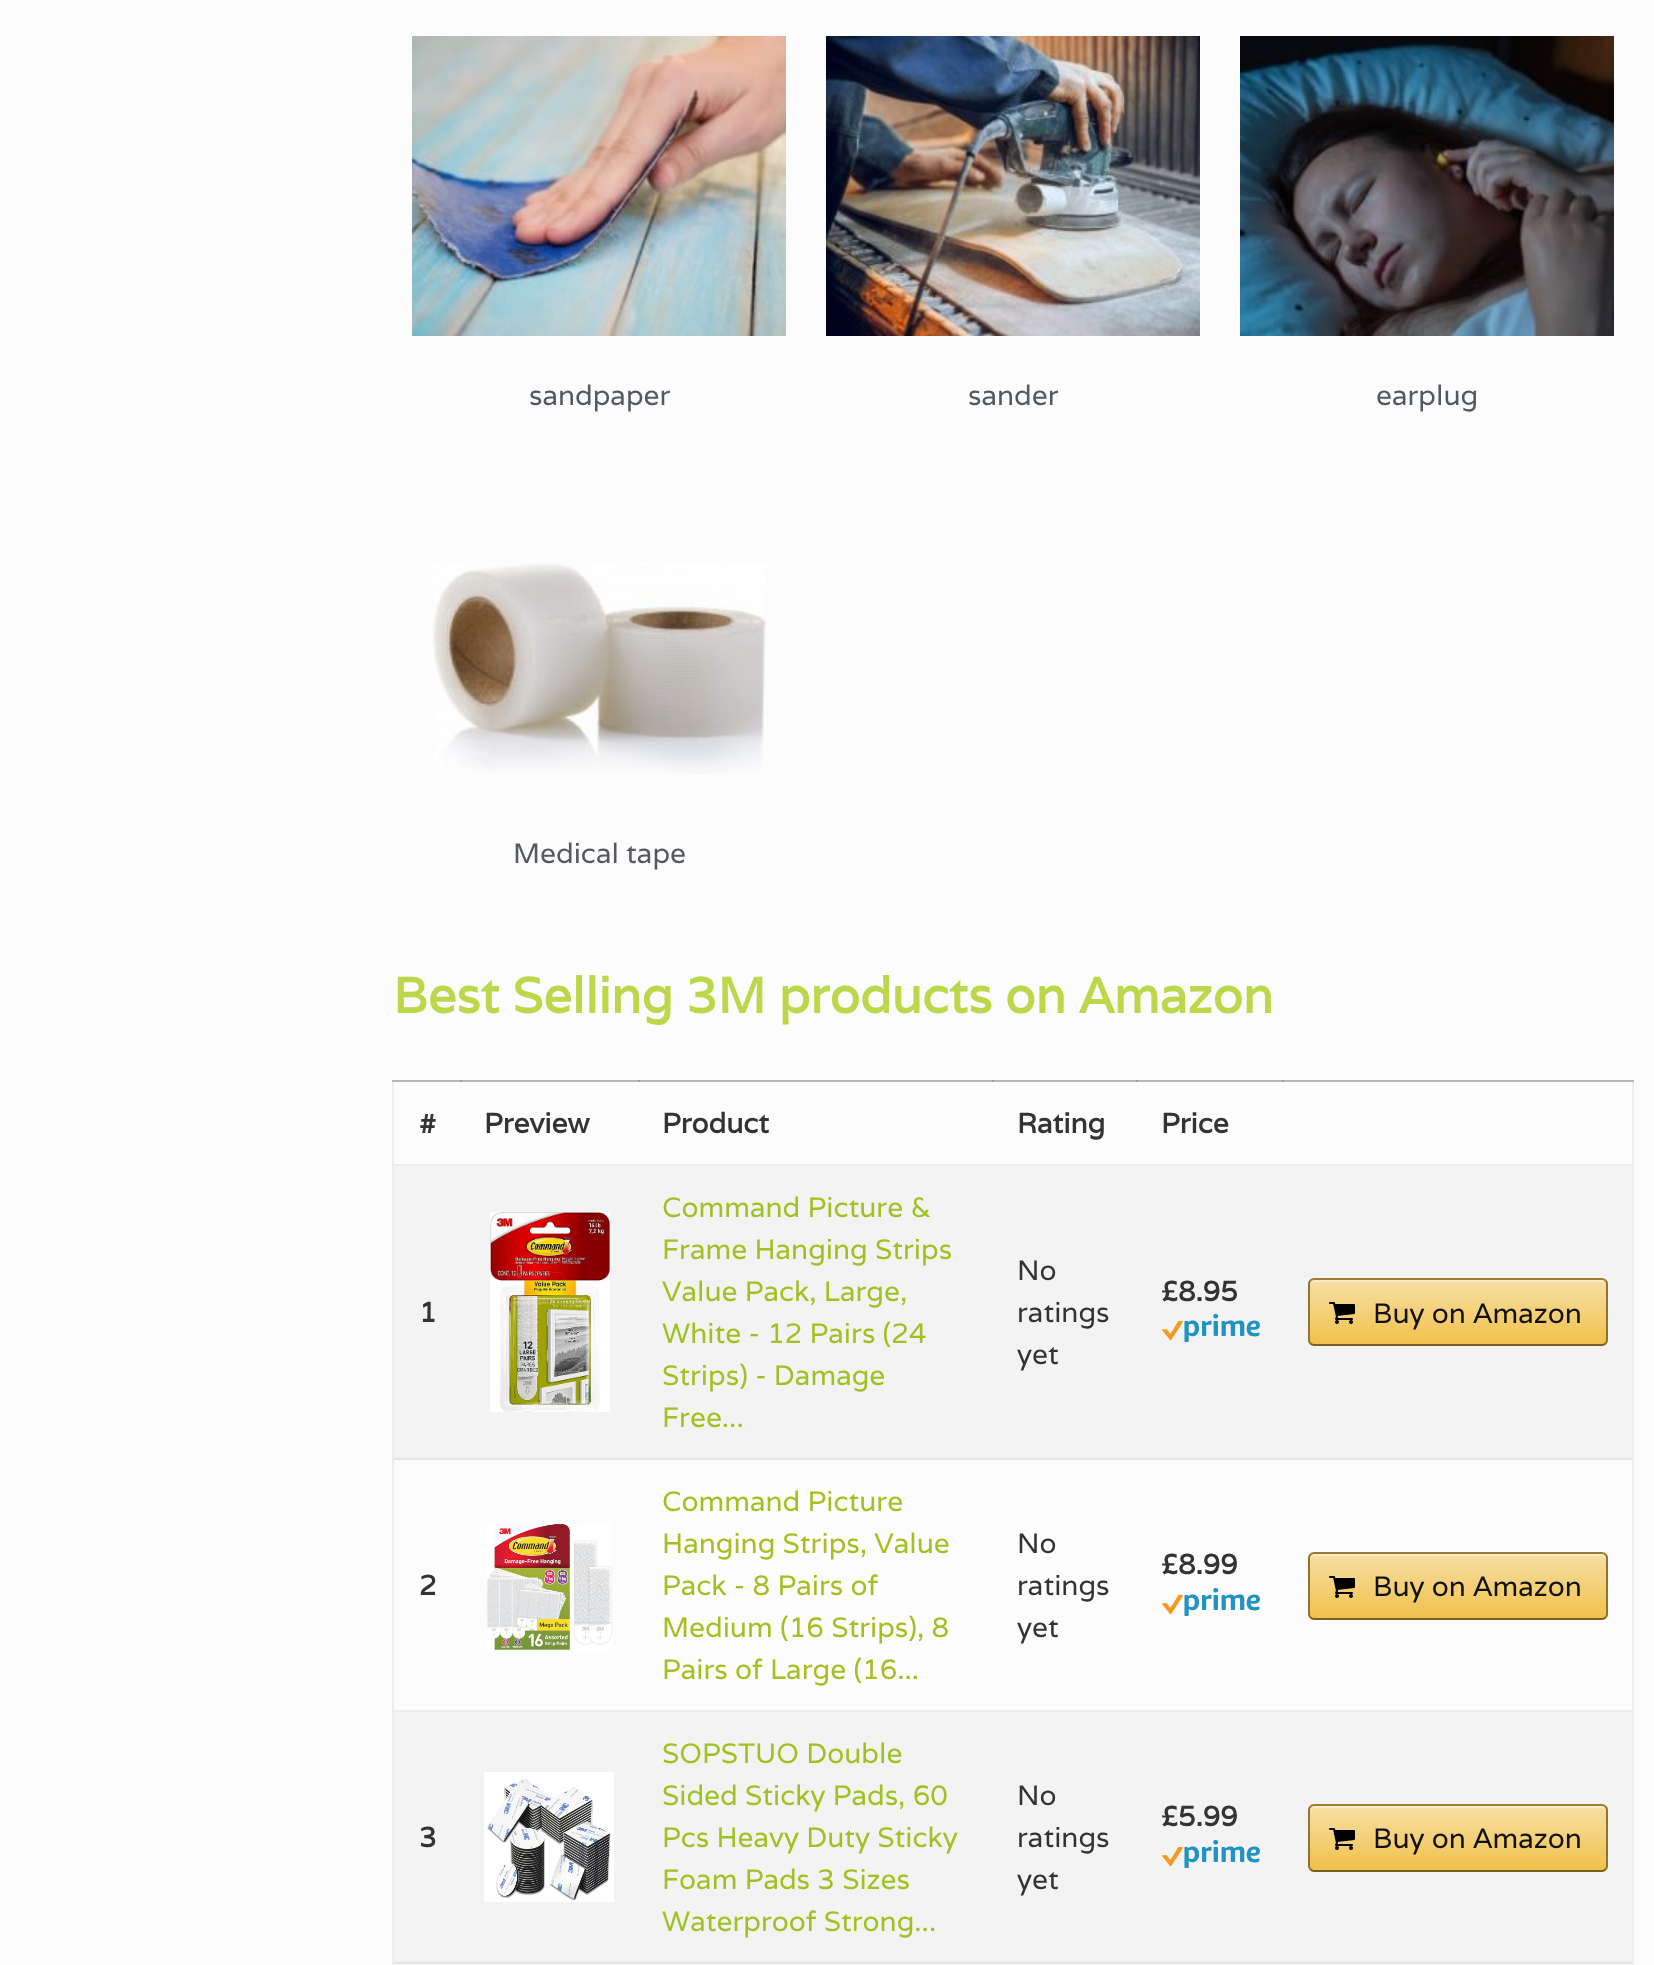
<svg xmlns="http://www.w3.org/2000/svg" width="1654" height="1965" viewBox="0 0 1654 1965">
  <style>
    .t1 { font: 28px Varela; fill: #54595f; }
    .t2 { font: bold 50px Varela; fill: #bcd74a; }
    .t3 { font: bold 28px Varela; fill: #333; }
    .t4 { font: 28px Varela; fill: #a2c021; }
    .t5 { font: 28px Varela; fill: #333; }
    .t6 { font: 28px Varela; fill: #111; }
  </style>
  <defs>
    <clipPath id="clip1"><rect x="1308" y="1278" width="300" height="68" rx="6"/></clipPath>
    <linearGradient id="g1" gradientUnits="userSpaceOnUse" x1="1458" y1="1280" x2="1458" y2="1344"><stop offset="0" stop-color="#f7dfa5"/><stop offset="1" stop-color="#f0c14b"/></linearGradient>
    <clipPath id="clip2"><rect x="1308" y="1552" width="300" height="68" rx="6"/></clipPath>
    <linearGradient id="g2" gradientUnits="userSpaceOnUse" x1="1458" y1="1554" x2="1458" y2="1618"><stop offset="0" stop-color="#f7dfa5"/><stop offset="1" stop-color="#f0c14b"/></linearGradient>
    <clipPath id="clip3"><rect x="1308" y="1804" width="300" height="68" rx="6"/></clipPath>
    <linearGradient id="g3" gradientUnits="userSpaceOnUse" x1="1458" y1="1806" x2="1458" y2="1870"><stop offset="0" stop-color="#f7dfa5"/><stop offset="1" stop-color="#f0c14b"/></linearGradient>
  </defs>
  <rect width="100%" height="100%" fill="#fcfcfc"/>
  <rect x="394" y="1712" width="1238" height="250" fill="#f3f3f3"/>
  <rect x="394" y="1166" width="1238" height="292" fill="#f3f3f3"/>
  <image x="412" y="36" width="374" height="300" href="images/1.png"/>
  <text x="529" y="405" class="t1">sandpaper</text>
  <image x="826" y="36" width="374" height="300" href="images/2.png"/>
  <text x="968" y="405" class="t1">sander</text>
  <image x="1240" y="36" width="374" height="300" href="images/3.png"/>
  <text x="1376" y="405" class="t1">earplug</text>
  <image x="433" y="563" width="333" height="211" href="images/4.png"/>
  <text x="513" y="863" class="t1">Medical tape</text>
  <text x="393" y="1013" class="t2">Best Selling 3M products on Amazon</text>
  <rect x="392" y="1080" width="892" height="2" fill="#b7b7b7"/>
  <rect x="460" y="1080" width="2" height="2" fill="#9c9c9c"/>
  <rect x="638" y="1080" width="2" height="2" fill="#9c9c9c"/>
  <rect x="992" y="1080" width="2" height="2" fill="#9c9c9c"/>
  <rect x="1136" y="1080" width="2" height="2" fill="#9c9c9c"/>
  <rect x="1632" y="1080" width="2" height="885" fill="#ededed"/>
  <rect x="392" y="1080" width="2" height="885" fill="#ededed"/>
  <rect x="392" y="1080" width="2" height="2" fill="#b7b7b7"/>
  <rect x="1282" y="1080" width="352" height="2" fill="#b7b7b7"/>
  <rect x="1282" y="1080" width="2" height="2" fill="#9c9c9c"/>
  <text x="419" y="1133" class="t3">#</text>
  <text x="484" y="1133" class="t3">Preview</text>
  <text x="662" y="1133" class="t3">Product</text>
  <text x="1017" y="1133" class="t3">Rating</text>
  <text x="1161" y="1133" class="t3">Price</text>
  <image x="490" y="1212" width="120" height="200" href="images/5.png"/>
  <text x="662" y="1217" class="t4">Command Picture &amp;</text>
  <text x="662" y="1259" class="t4">Frame Hanging Strips</text>
  <text x="662" y="1301" class="t4">Value Pack, Large,</text>
  <text x="662" y="1343" class="t4">White - 12 Pairs (24</text>
  <text x="662" y="1385" class="t4">Strips) - Damage</text>
  <text x="662" y="1427" class="t4">Free...</text>
  <text x="1017" y="1280" class="t5">No</text>
  <text x="1017" y="1322" class="t5">ratings</text>
  <text x="1017" y="1364" class="t5">yet</text>
  <text x="1161" y="1301" class="t3">£8.95</text>
  <image x="1162" y="1314" width="98" height="28" href="images/6.png"/>
  <text x="419" y="1322" class="t3">1</text>
  <rect x="392" y="1164" width="1242" height="2" fill="#ededed"/>
  <g clip-path="url(#clip1)">
    <rect x="1308" y="1280" width="300" height="64" fill="url(#g1)"/>
  </g>
  <path d="M1314 1282H1602C1604 1282 1606 1284 1606 1286V1284C1606 1282 1604 1280 1602 1280H1314C1312 1280 1310 1282 1310 1284V1286C1310 1284 1312 1282 1314 1282Z" fill="#ffffff66"/>
  <path d="M1310.5 1280.5C1311.5 1279.5 1312.5 1279 1314 1279H1602C1603.5 1279 1604.5 1279.5 1605.5 1280.5" fill="none" stroke="#9c7e31" stroke-width="2"/>
  <path d="M1605.5 1280.5C1606.5 1281.5 1607 1282.5 1607 1284V1340C1607 1341.5 1606.5 1342.5 1605.5 1343.5" fill="none" stroke="#90742d" stroke-width="2"/>
  <path d="M1605.5 1343.5C1604.5 1344.5 1603.5 1345 1602 1345H1314C1312.5 1345 1311.5 1344.5 1310.5 1343.5" fill="none" stroke="#786025" stroke-width="2"/>
  <path d="M1310.5 1343.5C1309.5 1342.5 1309 1341.5 1309 1340V1284C1309 1282.5 1309.5 1281.5 1310.5 1280.5" fill="none" stroke="#90742d" stroke-width="2"/>
  <image x="1329" y="1302" width="26" height="22" href="images/7.png"/>
  <text x="1373" y="1323" class="t6">Buy on Amazon</text>
  <image x="487" y="1524" width="125" height="127" href="images/8.png"/>
  <text x="662" y="1511" class="t4">Command Picture</text>
  <text x="662" y="1553" class="t4">Hanging Strips, Value</text>
  <text x="662" y="1595" class="t4">Pack - 8 Pairs of</text>
  <text x="662" y="1637" class="t4">Medium (16 Strips), 8</text>
  <text x="662" y="1679" class="t4">Pairs of Large (16...</text>
  <text x="1017" y="1553" class="t5">No</text>
  <text x="1017" y="1595" class="t5">ratings</text>
  <text x="1017" y="1637" class="t5">yet</text>
  <text x="1161" y="1574" class="t3">£8.99</text>
  <image x="1162" y="1588" width="98" height="28" href="images/9.png"/>
  <text x="419" y="1595" class="t3">2</text>
  <rect x="394" y="1458" width="1238" height="2" fill="#e5e5e5"/>
  <g clip-path="url(#clip2)">
    <rect x="1308" y="1554" width="300" height="64" fill="url(#g2)"/>
  </g>
  <path d="M1314 1556H1602C1604 1556 1606 1558 1606 1560V1558C1606 1556 1604 1554 1602 1554H1314C1312 1554 1310 1556 1310 1558V1560C1310 1558 1312 1556 1314 1556Z" fill="#ffffff66"/>
  <path d="M1310.5 1554.5C1311.5 1553.5 1312.5 1553 1314 1553H1602C1603.5 1553 1604.5 1553.5 1605.5 1554.5" fill="none" stroke="#9c7e31" stroke-width="2"/>
  <path d="M1605.5 1554.5C1606.5 1555.5 1607 1556.5 1607 1558V1614C1607 1615.5 1606.5 1616.5 1605.5 1617.5" fill="none" stroke="#90742d" stroke-width="2"/>
  <path d="M1605.5 1617.5C1604.5 1618.5 1603.5 1619 1602 1619H1314C1312.5 1619 1311.5 1618.5 1310.5 1617.5" fill="none" stroke="#786025" stroke-width="2"/>
  <path d="M1310.5 1617.5C1309.5 1616.5 1309 1615.5 1309 1614V1558C1309 1556.5 1309.5 1555.5 1310.5 1554.5" fill="none" stroke="#90742d" stroke-width="2"/>
  <image x="1329" y="1576" width="26" height="22" href="images/7.png"/>
  <text x="1373" y="1596" class="t6">Buy on Amazon</text>
  <image x="484" y="1772" width="130" height="130" href="images/10.png"/>
  <text x="662" y="1763" class="t4">SOPSTUO Double</text>
  <text x="662" y="1805" class="t4">Sided Sticky Pads, 60</text>
  <text x="662" y="1847" class="t4">Pcs Heavy Duty Sticky</text>
  <text x="662" y="1889" class="t4">Foam Pads 3 Sizes</text>
  <text x="662" y="1931" class="t4">Waterproof Strong...</text>
  <text x="1017" y="1805" class="t5">No</text>
  <text x="1017" y="1847" class="t5">ratings</text>
  <text x="1017" y="1889" class="t5">yet</text>
  <text x="1161" y="1826" class="t3">£5.99</text>
  <image x="1162" y="1840" width="98" height="28" href="images/6.png"/>
  <text x="419" y="1847" class="t3">3</text>
  <rect x="392" y="1710" width="1242" height="2" fill="#ededed"/>
  <g clip-path="url(#clip3)">
    <rect x="1308" y="1806" width="300" height="64" fill="url(#g3)"/>
  </g>
  <path d="M1314 1808H1602C1604 1808 1606 1810 1606 1812V1810C1606 1808 1604 1806 1602 1806H1314C1312 1806 1310 1808 1310 1810V1812C1310 1810 1312 1808 1314 1808Z" fill="#ffffff66"/>
  <path d="M1310.5 1806.5C1311.5 1805.5 1312.5 1805 1314 1805H1602C1603.5 1805 1604.5 1805.5 1605.5 1806.5" fill="none" stroke="#9c7e31" stroke-width="2"/>
  <path d="M1605.5 1806.5C1606.5 1807.5 1607 1808.5 1607 1810V1866C1607 1867.5 1606.5 1868.5 1605.5 1869.5" fill="none" stroke="#90742d" stroke-width="2"/>
  <path d="M1605.5 1869.5C1604.5 1870.5 1603.5 1871 1602 1871H1314C1312.5 1871 1311.5 1870.5 1310.5 1869.5" fill="none" stroke="#786025" stroke-width="2"/>
  <path d="M1310.5 1869.5C1309.5 1868.5 1309 1867.5 1309 1866V1810C1309 1808.5 1309.5 1807.5 1310.5 1806.5" fill="none" stroke="#90742d" stroke-width="2"/>
  <image x="1329" y="1828" width="26" height="22" href="images/7.png"/>
  <text x="1373" y="1848" class="t6">Buy on Amazon</text>
  <rect x="394" y="1962" width="1238" height="2" fill="#e5e5e5"/>
</svg>
